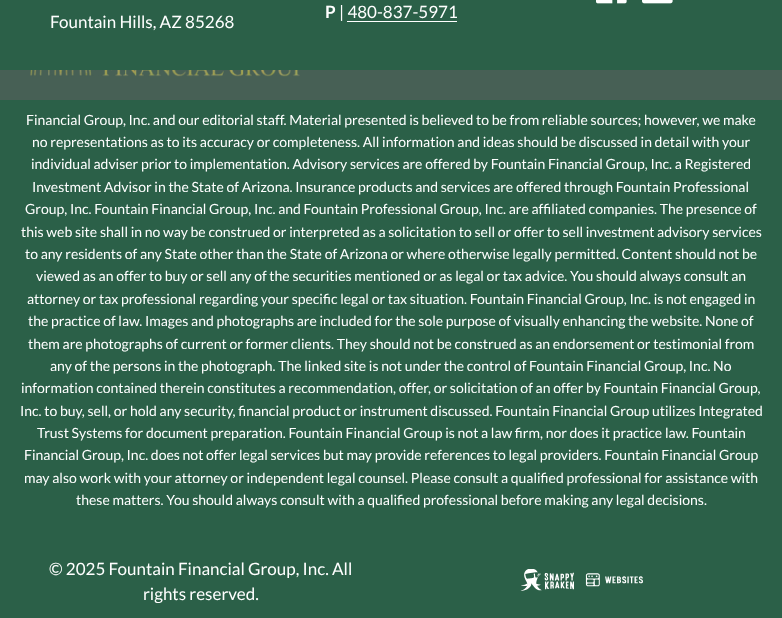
<svg xmlns="http://www.w3.org/2000/svg" width="782" height="618" viewBox="0 0 782 618">
  <style>
    .t1 { font: bold 17px Lato; fill: #fff; }
    .t2 { font: 17px Lato; fill: #fff; }
    .t3 { font: 14px Lato; fill: #fff; }
  </style>
  <rect width="100%" height="100%" fill="#2b6048"/>
  <image x="596" y="0" width="31" height="4" href="images/1.png"/>
  <image x="642" y="0" width="31" height="4" href="images/2.png"/>
  <text x="325" y="18" class="t1">P</text>
  <text x="339" y="18" class="t2">| 480-837-5971</text>
  <rect x="347" y="21" width="110" height="1" fill="#fff"/>
  <text x="50" y="28" class="t2">Fountain Hills, AZ 85268</text>
  <text x="26" y="125" class="t3">Financial Group, Inc. and our editorial staff. Material presented is believed to be from reliable sources; however, we make</text>
  <text x="32" y="147" class="t3">no representations as to its accuracy or completeness. All information and ideas should be discussed in detail with your</text>
  <text x="31" y="169" class="t3">individual adviser prior to implementation. Advisory services are offered by Fountain Financial Group, Inc. a Registered</text>
  <text x="32" y="192" class="t3">Investment Advisor in the State of Arizona. Insurance products and services are offered through Fountain Professional</text>
  <text x="25" y="214" class="t3">Group, Inc. Fountain Financial Group, Inc. and Fountain Professional Group, Inc. are affiliated companies. The presence of</text>
  <text x="21" y="237" class="t3">this web site shall in no way be construed or interpreted as a solicitation to sell or offer to sell investment advisory services</text>
  <text x="25" y="259" class="t3">to any residents of any State other than the State of Arizona or where otherwise legally permitted. Content should not be</text>
  <text x="36" y="281" class="t3">viewed as an offer to buy or sell any of the securities mentioned or as legal or tax advice. You should always consult an</text>
  <text x="27" y="304" class="t3">attorney or tax professional regarding your specific legal or tax situation. Fountain Financial Group, Inc. is not engaged in</text>
  <text x="28" y="326" class="t3">the practice of law. Images and photographs are included for the sole purpose of visually enhancing the website. None of</text>
  <text x="28" y="349" class="t3">them are photographs of current or former clients. They should not be construed as an endorsement or testimonial from</text>
  <text x="50" y="371" class="t3">any of the persons in the photograph. The linked site is not under the control of Fountain Financial Group, Inc. No</text>
  <text x="21" y="393" class="t3">information contained therein constitutes a recommendation, offer, or solicitation of an offer by Fountain Financial Group,</text>
  <text x="20" y="416" class="t3">Inc. to buy, sell, or hold any security, financial product or instrument discussed. Fountain Financial Group utilizes Integrated</text>
  <text x="37" y="438" class="t3">Trust Systems for document preparation. Fountain Financial Group is not a law firm, nor does it practice law. Fountain</text>
  <text x="24" y="460" class="t3">Financial Group, Inc. does not offer legal services but may provide references to legal providers. Fountain Financial Group</text>
  <text x="24" y="483" class="t3">may also work with your attorney or independent legal counsel. Please consult a qualified professional for assistance with</text>
  <text x="76" y="505" class="t3">these matters. You should always consult with a qualified professional before making any legal decisions.</text>
  <rect x="0" y="70" width="782" height="30" fill="#476055"/>
  <image x="30" y="70" width="270" height="7" href="images/3.png"/>
  <text x="49" y="575" class="t2">© 2025 Fountain Financial Group, Inc. All</text>
  <text x="143" y="600" class="t2">rights reserved.</text>
  <image x="520" y="569" width="123" height="22" href="images/4.png"/>
</svg>
